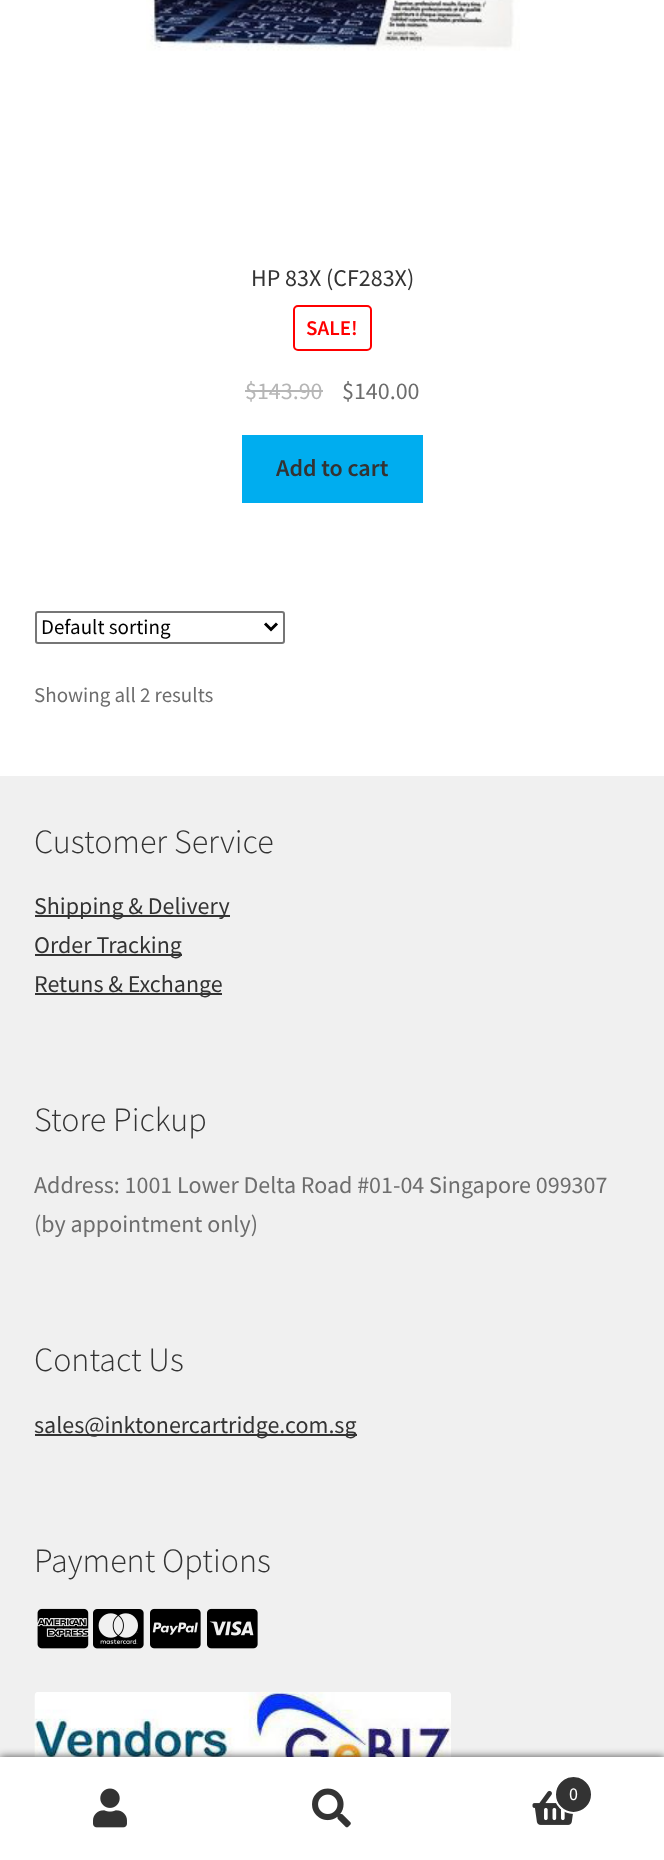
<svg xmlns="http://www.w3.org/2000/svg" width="664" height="1860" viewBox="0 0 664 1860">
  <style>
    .t1 { font: 24px Source Sans Pro; fill: #333; }
    .t2 { font: 600 21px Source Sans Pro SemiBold; fill: #f00; }
    .t3 { font: 24px Source Sans Pro; fill: #b6b6b6; }
    .t4 { font: 24px Source Sans Pro; fill: #6d6d6d; }
    .t5 { font: 600 24px Source Sans Pro SemiBold; fill: #333; }
    .t6 { font: 21px Source Sans Pro; fill: #000; }
    .t7 { font: 21px Source Sans Pro; fill: #6d6d6d; }
    .t8 { font: 300 34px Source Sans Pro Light; fill: #333; }
    .t9 { font: 18px Source Sans Pro; fill: #fff; }
  </style>
  <rect width="100%" height="100%" fill="#fff"/>
  <image x="146" y="0" width="374" height="51" href="images/1.png"/>
  <text x="251" y="286" class="t1">HP 83X (CF283X)</text>
  <rect x="294" y="306" width="77" height="44" rx="4" fill="none" stroke="#f00" stroke-width="2"/>
  <text x="306" y="335" class="t2">SALE!</text>
  <text x="245" y="399" class="t3">$143.90</text>
  <rect x="245" y="390" width="78" height="2" fill="#b6b6b6"/>
  <text x="342" y="399" class="t4">$140.00</text>
  <rect x="242" y="435" width="181" height="68" fill="#00adef"/>
  <text x="276" y="476" class="t5">Add to cart</text>
  <rect x="36" y="612" width="248" height="31" rx="2" fill="none" stroke="#767676" stroke-width="2"/>
  <path d="M265 623.5L271 629.5L277 623.5" fill="none" stroke="#000" stroke-width="3"/>
  <text x="41" y="634" class="t6">Default sorting</text>
  <text x="34" y="702" class="t7">Showing all 2 results</text>
  <rect x="0" y="776" width="664" height="981" fill="#f0f0f0"/>
  <text x="34" y="853" class="t8">Customer Service</text>
  <rect x="35" y="915" width="195" height="2" fill="#333"/>
  <text x="34" y="914" class="t1">Shipping &amp; Delivery</text>
  <rect x="35" y="954" width="147" height="2" fill="#333"/>
  <text x="34" y="953" class="t1">Order Tracking</text>
  <rect x="35" y="993" width="187" height="2" fill="#333"/>
  <text x="34" y="992" class="t1">Retuns &amp; Exchange</text>
  <text x="34" y="1131" class="t8">Store Pickup</text>
  <text x="34" y="1193" class="t4">Address: 1001 Lower Delta Road #01-04 Singapore 099307</text>
  <text x="34" y="1232" class="t4">(by appointment only)</text>
  <text x="34" y="1371" class="t8">Contact Us</text>
  <rect x="35" y="1434" width="322" height="2" fill="#333"/>
  <text x="34" y="1433" class="t1">sales@inktonercartridge.com.sg</text>
  <text x="34" y="1572" class="t8">Payment Options</text>
  <image x="37" y="1608" width="52" height="41" href="images/2.png"/>
  <image x="93" y="1609" width="51" height="40" href="images/3.png"/>
  <image x="150" y="1608" width="51" height="41" href="images/4.png"/>
  <image x="207" y="1608" width="51" height="41" href="images/5.png"/>
  <image x="34" y="1692" width="417" height="65" href="images/6.png"/>
  <rect x="0" y="1757" width="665" height="103" fill="#000000b3" filter="blur(4.5px)"/>
  <rect x="0" y="1757" width="664" height="1" fill="#fff"/>
  <rect x="0" y="1758" width="664" height="102" fill="#fff"/>
  <image x="93" y="1788" width="34" height="40" href="images/7.png"/>
  <image x="312" y="1788" width="39" height="40" href="images/8.png"/>
  <image x="532" y="1790" width="41" height="35" href="images/9.png"/>
  <circle cx="573.5" cy="1794.5" r="18.5" fill="#333" stroke="#fff" stroke-width="2"/>
  <text x="569" y="1800" class="t9">0</text>
</svg>
